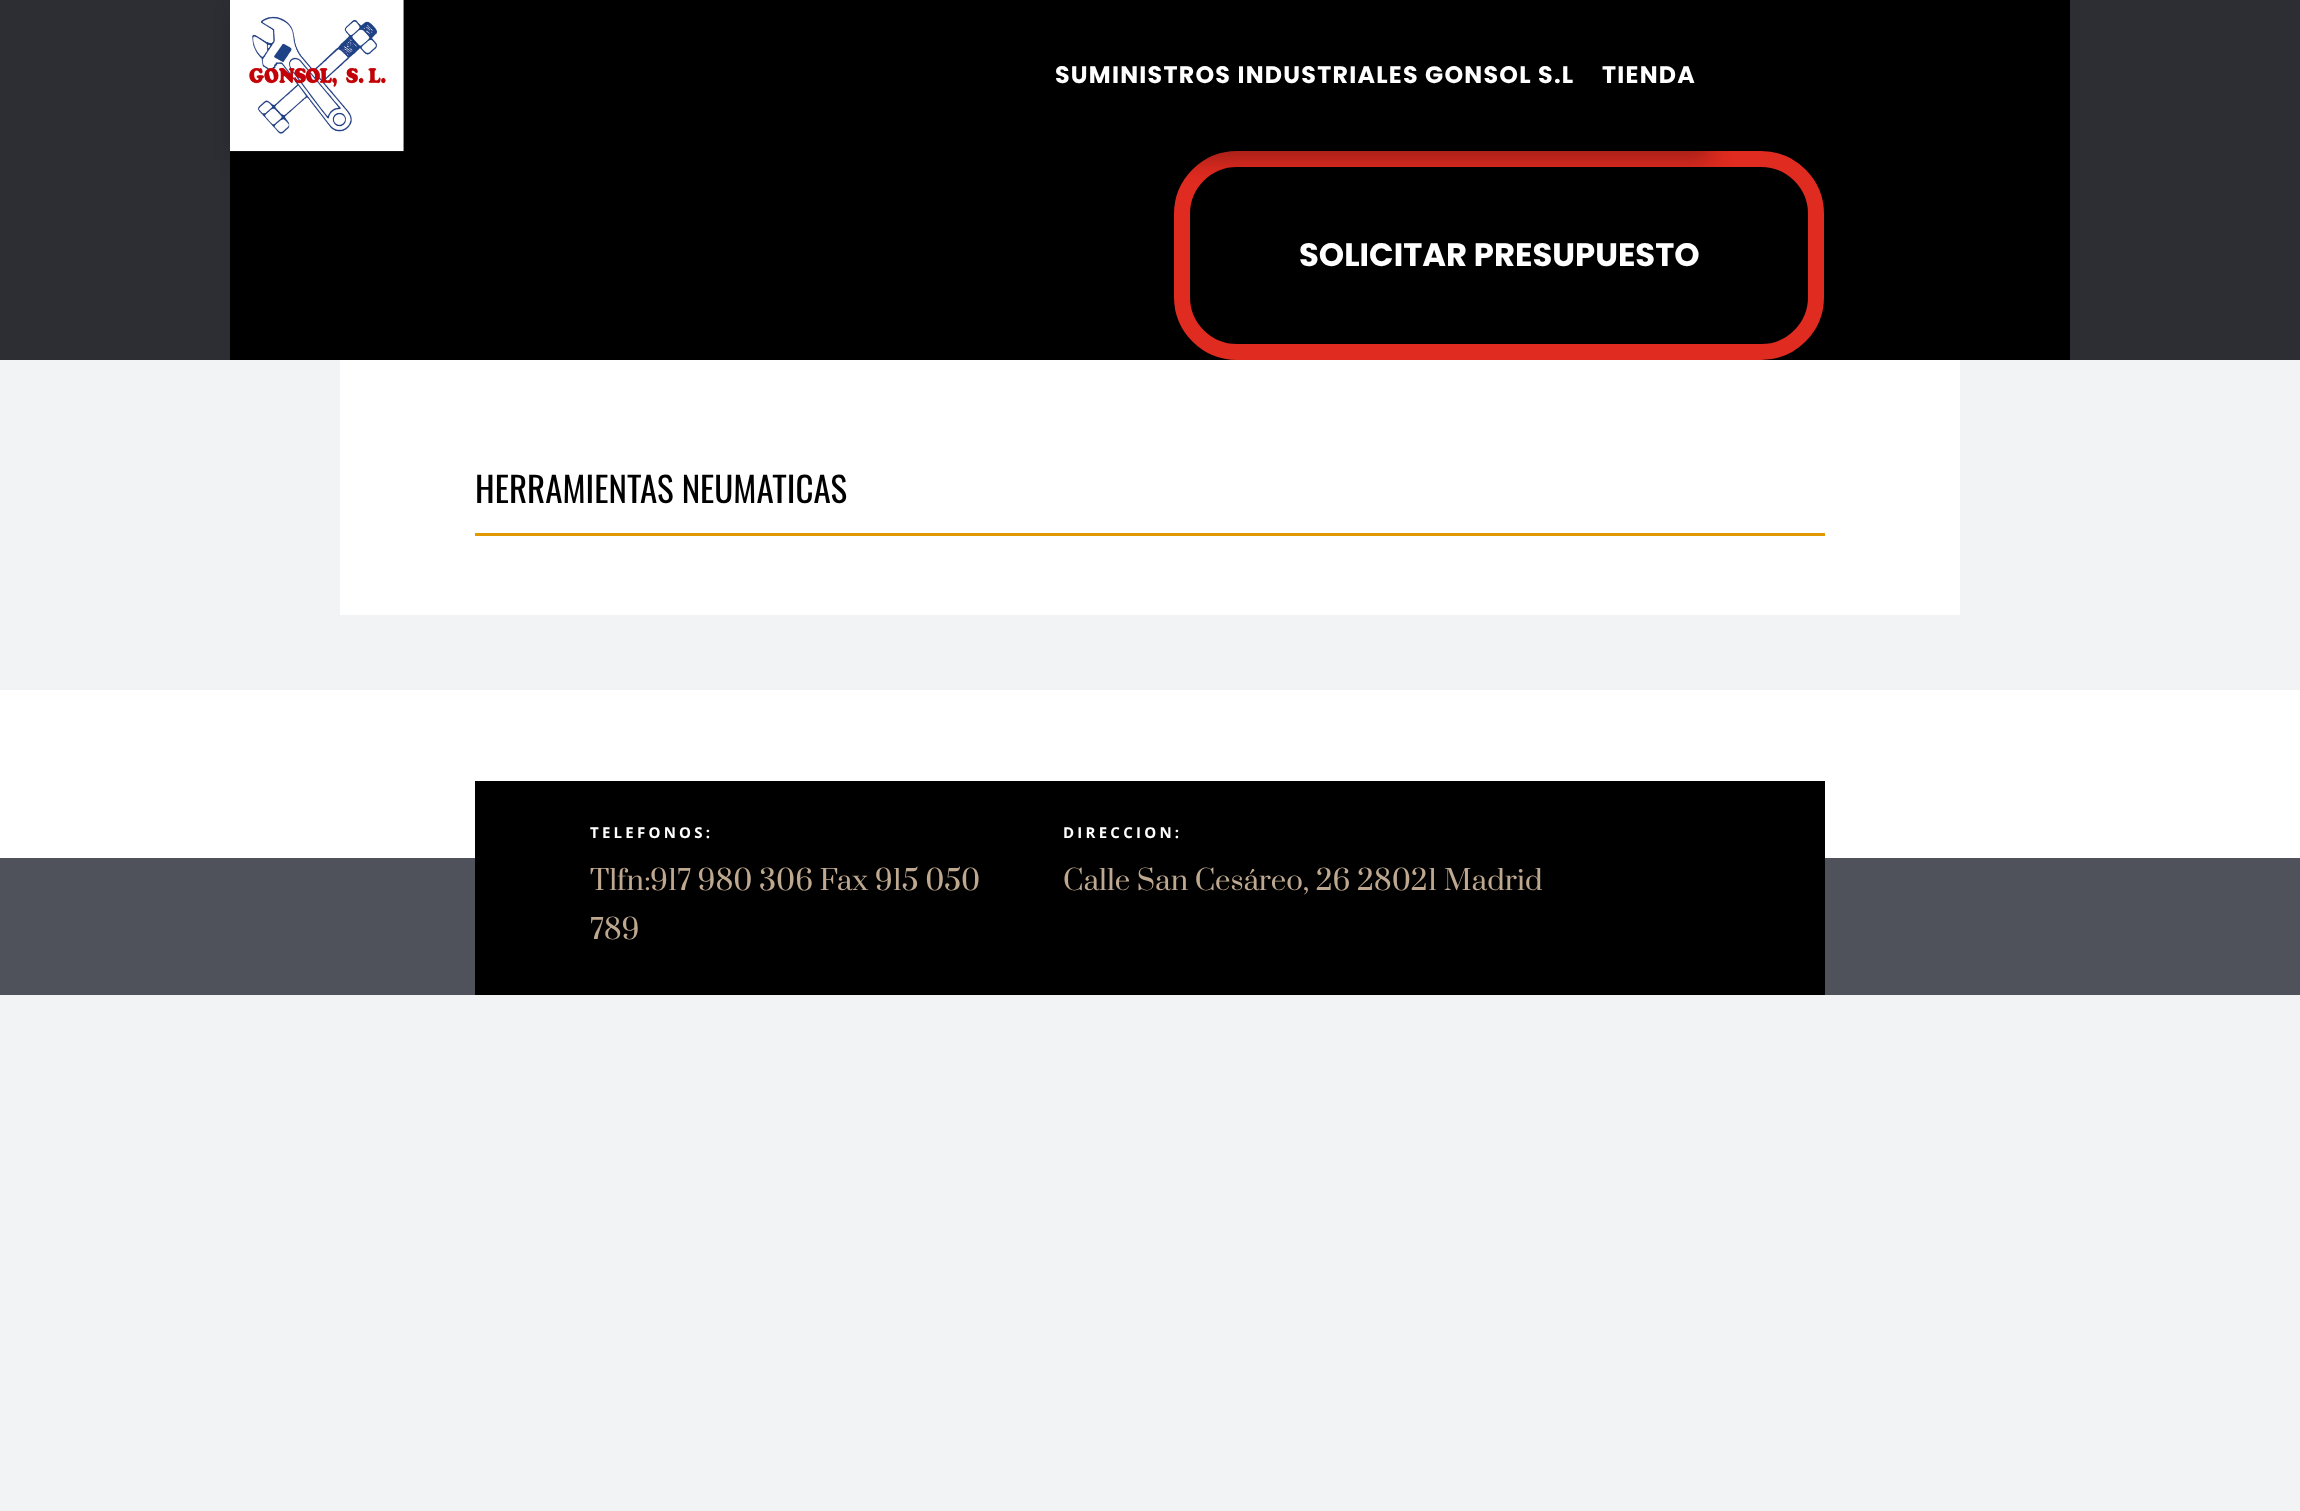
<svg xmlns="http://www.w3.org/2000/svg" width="2300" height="1511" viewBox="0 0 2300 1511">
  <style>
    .t1 { font: bold 23.75px Poppins; letter-spacing: 1.25px; fill: #fff; }
    .t2 { font: bold 32.25px Poppins; fill: #fff; }
    .t3 { font: 35px Oswald; fill: #000; }
    .t4 { font: bold 15px Open Sans; letter-spacing: 3.25px; fill: #fff; }
    .t5 { font: 27.5px Prata; fill: #bea88f; }
  </style>
  <defs>
    <clipPath id="clip1"><path d="M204 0H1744V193H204ZM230 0H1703V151H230Z" clip-rule="evenodd"/></clipPath>
  </defs>
  <rect width="100%" height="100%" fill="#f2f3f5"/>
  <rect x="0" y="0" width="2300" height="360" fill="#2d2e34"/>
  <rect x="230" y="0" width="1840" height="360" fill="#000"/>
  <rect x="1182" y="159" width="634" height="193" rx="55" fill="none" stroke="#e02b20" stroke-width="16"/>
  <g clip-path="url(#clip1)">
    <rect x="238" y="8" width="1472" height="151" fill="#0000004d" filter="blur(11px)"/>
  </g>
  <image x="230" y="0" width="174" height="152" href="images/1.png"/>
  <text x="1055" y="83" class="t1">SUMINISTROS INDUSTRIALES GONSOL S.L</text>
  <text x="1602" y="83" class="t1">TIENDA</text>
  <text x="1299" y="266" class="t2">SOLICITAR PRESUPUESTO</text>
  <rect x="340" y="360" width="1620" height="255" fill="#fff"/>
  <text x="475" y="503" class="t3">HERRAMIENTAS NEUMATICAS</text>
  <rect x="475" y="533" width="1350" height="3" fill="#e09900"/>
  <rect x="0" y="690" width="2300" height="168" fill="#fff"/>
  <rect x="0" y="858" width="2300" height="137" fill="#4f525b"/>
  <rect x="475" y="781" width="1350" height="214" fill="#000"/>
  <text x="590" y="838" class="t4">TELEFONOS:</text>
  <text x="590" y="890" class="t5">Tlfn:917 980 306 Fax 915 050</text>
  <text x="590" y="939" class="t5">789</text>
  <text x="1063" y="838" class="t4">DIRECCION:</text>
  <text x="1063" y="890" class="t5">Calle San Cesáreo, 26 28021 Madrid</text>
</svg>
